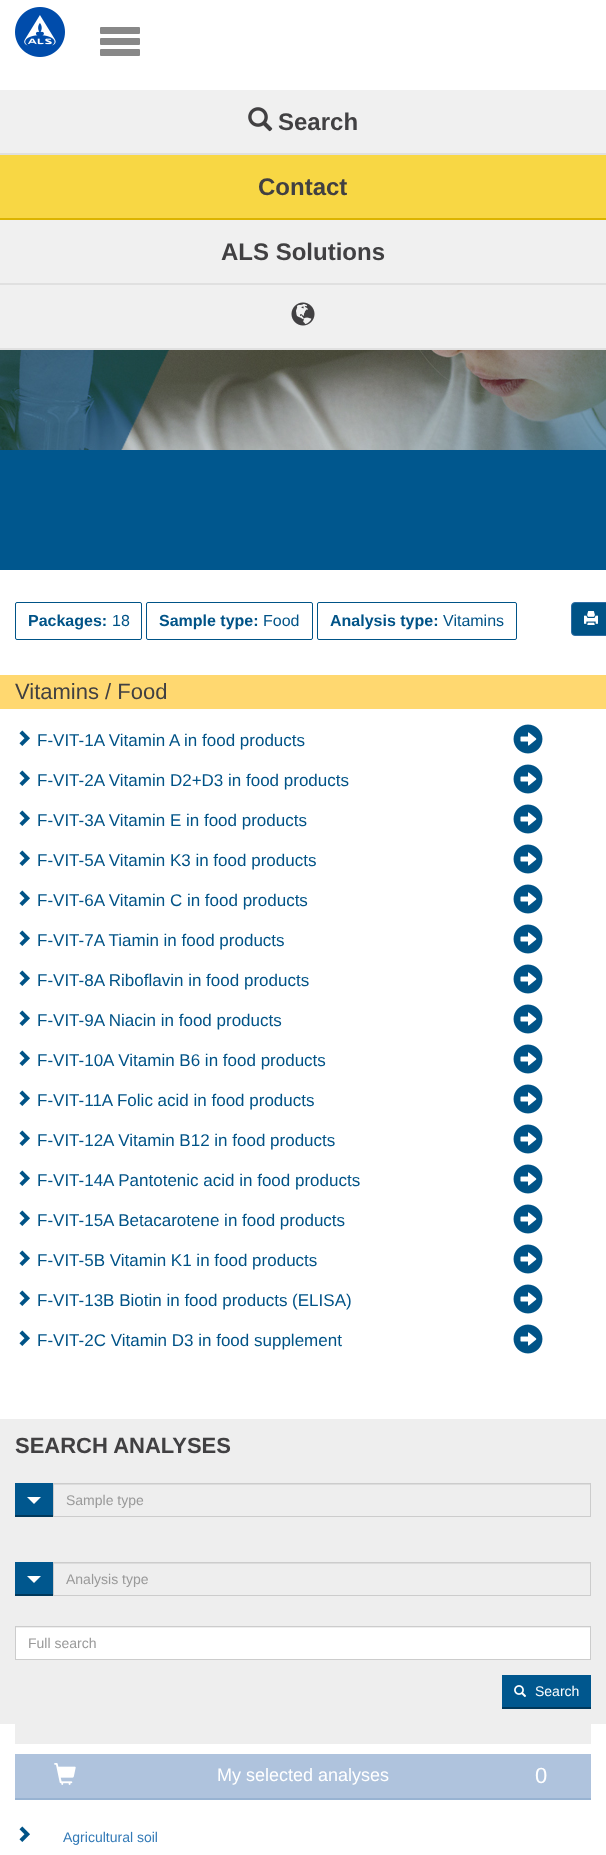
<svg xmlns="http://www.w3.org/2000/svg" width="606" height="1855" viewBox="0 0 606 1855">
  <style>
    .t1 { font: bold 24px Liberation Sans; fill: #414042; }
    .t2 { font: bold 16px Liberation Sans; fill: #005387; }
    .t3 { font: 16px Liberation Sans; fill: #005387; }
    .t4 { font: 22px Liberation Sans; fill: #414042; }
    .t5 { font: 17px Liberation Sans; fill: #005387; }
    .t6 { font: bold 22px Liberation Sans; fill: #414042; }
    .t7 { font: 14px Liberation Sans; fill: #999; }
    .t8 { font: 14px Liberation Sans; fill: #fff; }
    .t9 { font: 18px Liberation Sans; fill: #fff; }
    .t10 { font: 22px Liberation Sans; fill: #fff; }
    .t11 { font: 14px Liberation Sans; fill: #337ab7; }
  </style>
  <rect width="100%" height="100%" fill="#fff"/>
  <image x="15" y="7" width="50" height="50" href="images/1.png"/>
  <rect x="100" y="27" width="40" height="7" rx="1" fill="#888"/>
  <rect x="100" y="38" width="40" height="7" rx="1" fill="#888"/>
  <rect x="100" y="49" width="40" height="7" rx="1" fill="#888"/>
  <rect x="0" y="90" width="606" height="63" fill="#f0f0f0"/>
  <rect x="0" y="153" width="606" height="2" fill="#e0e0e0"/>
  <image x="248" y="107" width="25" height="25" href="images/2.png"/>
  <text x="278" y="130" class="t1">Search</text>
  <rect x="0" y="155" width="606" height="63" fill="#f8d744"/>
  <rect x="0" y="218" width="606" height="2" fill="#dcb400"/>
  <text x="258" y="195" class="t1">Contact</text>
  <rect x="0" y="220" width="606" height="63" fill="#f0f0f0"/>
  <rect x="0" y="283" width="606" height="2" fill="#e0e0e0"/>
  <text x="221" y="260" class="t1">ALS Solutions</text>
  <rect x="0" y="285" width="606" height="63" fill="#f0f0f0"/>
  <rect x="0" y="348" width="606" height="2" fill="#e0e0e0"/>
  <image x="291" y="302" width="24" height="24" href="images/3.png"/>
  <image x="0" y="350" width="606" height="100" href="images/4.png"/>
  <rect x="0" y="450" width="606" height="120" fill="#00578e"/>
  <rect x="15.5" y="602.5" width="126" height="37" rx="1.5" fill="none" stroke="#005387"/>
  <text x="28" y="626" class="t2">Packages:</text>
  <text x="112" y="626" class="t3">18</text>
  <rect x="146.5" y="602.5" width="166" height="37" rx="1.5" fill="none" stroke="#005387"/>
  <text x="159" y="626" class="t2">Sample type:</text>
  <text x="263" y="626" class="t3">Food</text>
  <rect x="317.5" y="602.5" width="199" height="37" rx="1.5" fill="none" stroke="#005387"/>
  <text x="330" y="626" class="t2">Analysis type:</text>
  <text x="443" y="626" class="t3">Vitamins</text>
  <rect x="571.5" y="602.5" width="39" height="33" rx="3.5" fill="#005387" stroke="#2e6da4"/>
  <image x="584" y="611" width="14" height="14" href="images/5.png"/>
  <rect x="0" y="675" width="606" height="34" fill="#ffd870"/>
  <text x="15" y="699" class="t4">Vitamins / Food</text>
  <image x="19" y="730" width="11" height="16" href="images/6.png"/>
  <text x="37" y="746" class="t5">F-VIT-1A Vitamin A in food products</text>
  <image x="513" y="724" width="30" height="30" href="images/7.png"/>
  <image x="19" y="770" width="11" height="16" href="images/6.png"/>
  <text x="37" y="786" class="t5">F-VIT-2A Vitamin D2+D3 in food products</text>
  <image x="513" y="764" width="30" height="30" href="images/7.png"/>
  <image x="19" y="810" width="11" height="16" href="images/6.png"/>
  <text x="37" y="826" class="t5">F-VIT-3A Vitamin E in food products</text>
  <image x="513" y="804" width="30" height="30" href="images/7.png"/>
  <image x="19" y="850" width="11" height="16" href="images/6.png"/>
  <text x="37" y="866" class="t5">F-VIT-5A Vitamin K3 in food products</text>
  <image x="513" y="844" width="30" height="30" href="images/7.png"/>
  <image x="19" y="890" width="11" height="16" href="images/6.png"/>
  <text x="37" y="906" class="t5">F-VIT-6A Vitamin C in food products</text>
  <image x="513" y="884" width="30" height="30" href="images/7.png"/>
  <image x="19" y="930" width="11" height="16" href="images/6.png"/>
  <text x="37" y="946" class="t5">F-VIT-7A Tiamin in food products</text>
  <image x="513" y="924" width="30" height="30" href="images/7.png"/>
  <image x="19" y="970" width="11" height="16" href="images/6.png"/>
  <text x="37" y="986" class="t5">F-VIT-8A Riboflavin in food products</text>
  <image x="513" y="964" width="30" height="30" href="images/7.png"/>
  <image x="19" y="1010" width="11" height="16" href="images/6.png"/>
  <text x="37" y="1026" class="t5">F-VIT-9A Niacin in food products</text>
  <image x="513" y="1004" width="30" height="30" href="images/7.png"/>
  <image x="19" y="1050" width="11" height="16" href="images/6.png"/>
  <text x="37" y="1066" class="t5">F-VIT-10A Vitamin B6 in food products</text>
  <image x="513" y="1044" width="30" height="30" href="images/7.png"/>
  <image x="19" y="1090" width="11" height="16" href="images/6.png"/>
  <text x="37" y="1106" class="t5">F-VIT-11A Folic acid in food products</text>
  <image x="513" y="1084" width="30" height="30" href="images/7.png"/>
  <image x="19" y="1130" width="11" height="16" href="images/6.png"/>
  <text x="37" y="1146" class="t5">F-VIT-12A Vitamin B12 in food products</text>
  <image x="513" y="1124" width="30" height="30" href="images/7.png"/>
  <image x="19" y="1170" width="11" height="16" href="images/6.png"/>
  <text x="37" y="1186" class="t5">F-VIT-14A Pantotenic acid in food products</text>
  <image x="513" y="1164" width="30" height="30" href="images/7.png"/>
  <image x="19" y="1210" width="11" height="16" href="images/6.png"/>
  <text x="37" y="1226" class="t5">F-VIT-15A Betacarotene in food products</text>
  <image x="513" y="1204" width="30" height="30" href="images/7.png"/>
  <image x="19" y="1250" width="11" height="16" href="images/6.png"/>
  <text x="37" y="1266" class="t5">F-VIT-5B Vitamin K1 in food products</text>
  <image x="513" y="1244" width="30" height="30" href="images/7.png"/>
  <image x="19" y="1290" width="11" height="16" href="images/6.png"/>
  <text x="37" y="1306" class="t5">F-VIT-13B Biotin in food products (ELISA)</text>
  <image x="513" y="1284" width="30" height="30" href="images/7.png"/>
  <image x="19" y="1330" width="11" height="16" href="images/6.png"/>
  <text x="37" y="1346" class="t5">F-VIT-2C Vitamin D3 in food supplement</text>
  <image x="513" y="1324" width="30" height="30" href="images/7.png"/>
  <rect x="15" y="1724" width="576" height="20" fill="#eee"/>
  <rect x="0" y="1419" width="606" height="305" fill="#eee"/>
  <text x="15" y="1453" class="t6">SEARCH ANALYSES</text>
  <rect x="15" y="1483" width="38" height="32" fill="#00578e"/>
  <rect x="15" y="1515" width="38" height="2" fill="#00385b"/>
  <path d="M27 1497H41L34 1504Z" fill="#fff"/>
  <rect x="54" y="1484" width="536" height="1" fill="#dcdcdc"/>
  <rect x="53.5" y="1483.5" width="537" height="33" fill="none" stroke="#ccc"/>
  <text x="66" y="1505" class="t7">Sample type</text>
  <rect x="15" y="1562" width="38" height="32" fill="#00578e"/>
  <rect x="15" y="1594" width="38" height="2" fill="#00385b"/>
  <path d="M27 1576H41L34 1583Z" fill="#fff"/>
  <rect x="54" y="1563" width="536" height="1" fill="#dcdcdc"/>
  <rect x="53.5" y="1562.5" width="537" height="33" fill="none" stroke="#ccc"/>
  <text x="66" y="1584" class="t7">Analysis type</text>
  <rect x="16" y="1628" width="574" height="31" fill="#fff"/>
  <rect x="15.5" y="1626.5" width="575" height="33" fill="none" stroke="#ccc"/>
  <text x="28" y="1648" class="t7">Full search</text>
  <rect x="502" y="1675" width="89" height="32" fill="#00578e"/>
  <rect x="502" y="1707" width="89" height="2" fill="#00385b"/>
  <image x="514" y="1685" width="12" height="12" href="images/8.png"/>
  <text x="535" y="1696" class="t8">Search</text>
  <rect x="15" y="1754" width="576" height="44" fill="#afc3dd"/>
  <rect x="15" y="1798" width="576" height="2" fill="#98b3d2"/>
  <image x="54" y="1763" width="22" height="22" href="images/9.png"/>
  <text x="217" y="1781" class="t9">My selected analyses</text>
  <text x="535" y="1783" class="t10">0</text>
  <image x="19" y="1826" width="11" height="16" href="images/6.png"/>
  <text x="63" y="1842" class="t11">Agricultural soil</text>
</svg>
